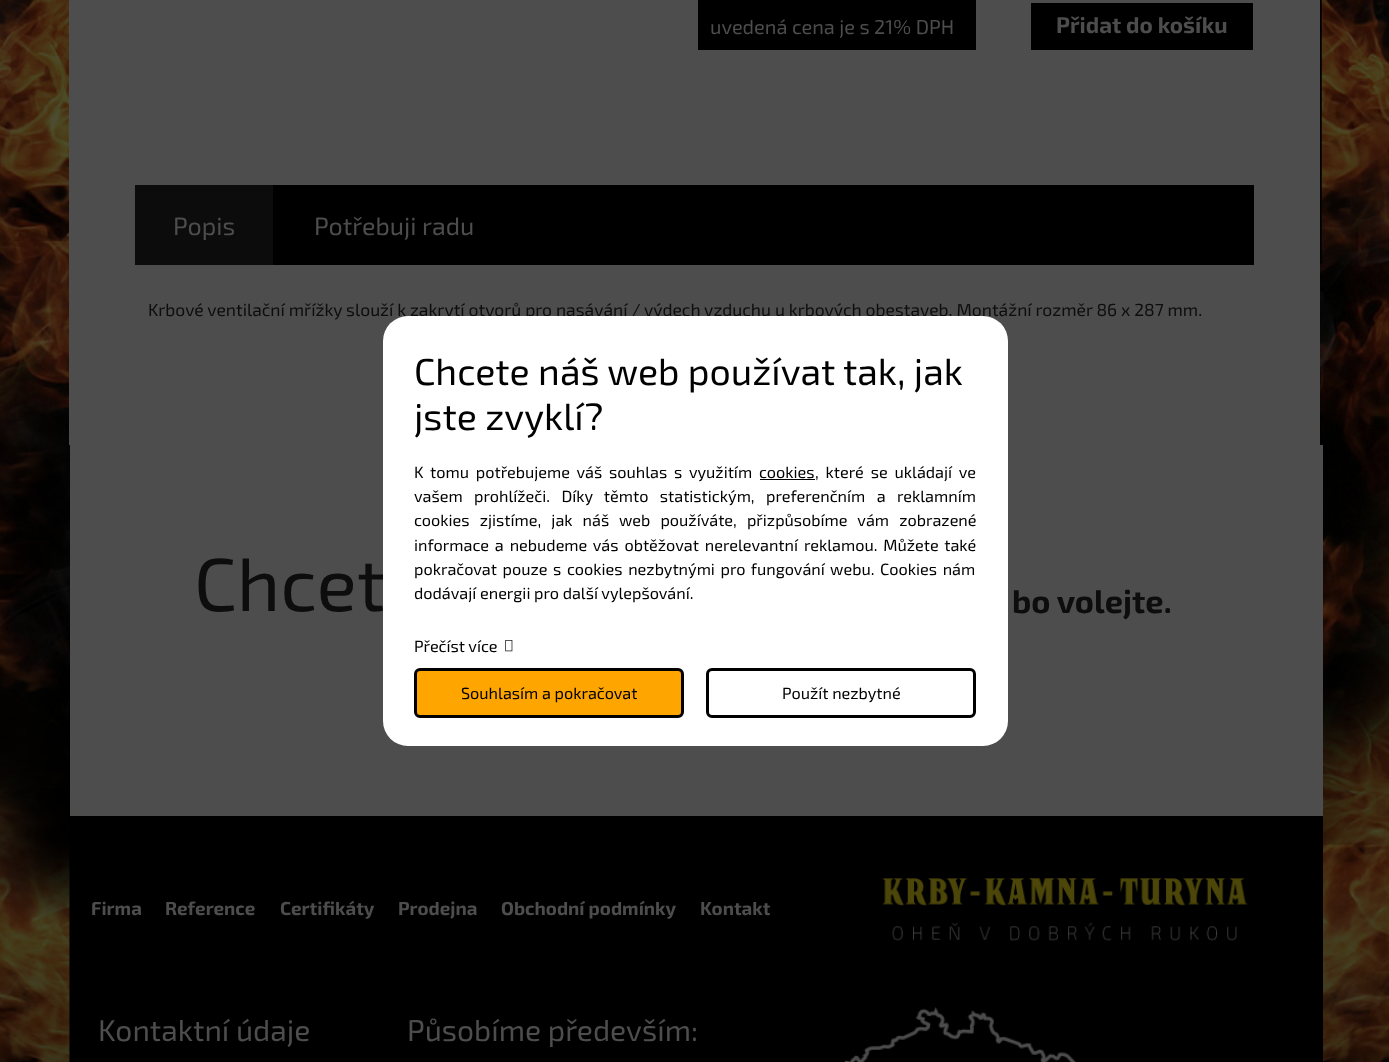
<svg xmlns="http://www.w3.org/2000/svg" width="1389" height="1062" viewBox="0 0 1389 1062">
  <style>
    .t1 { font: 20px 'Exo 2'; fill: #4d4d4d; }
    .t2 { font: bold 22.5px 'Exo 2'; fill: #4d4d4d; }
    .t3 { font: 25px 'Exo 2'; fill: #4d4d4d; }
    .t4 { font: 17.5px 'Exo 2'; fill: #0d0d0d; }
    .t5 { font: 75px 'Exo 2'; fill: #0d0d0d; }
    .t6 { font: bold 32.5px 'Exo 2'; fill: #0d0d0d; }
    .t7 { font: bold 18.75px 'Exo 2'; fill: #4d4d4d; }
    .t8 { font: 30px 'Exo 2'; fill: #4d4d4d; }
    .t9 { font: 37.5px 'Exo 2'; fill: #000; }
    .t10 { font: 16.25px 'Exo 2'; fill: #000; }
  </style>
  <rect width="100%" height="100%" fill="#fff"/>
  <image x="0" y="0" width="1389" height="1062" href="images/1.png"/>
  <rect x="69" y="0" width="1251" height="445" fill="#4d4d4d"/>
  <rect x="698" y="0" width="278" height="50" fill="#000"/>
  <text x="710" y="34" class="t1">uvedená cena je s 21% DPH</text>
  <rect x="1031" y="3" width="222" height="47" fill="#000"/>
  <text x="1056" y="33" class="t2">Přidat do košíku</text>
  <rect x="273" y="185" width="981" height="80" fill="#000"/>
  <rect x="135" y="185" width="138" height="80" fill="#0c0c0c"/>
  <text x="173" y="235" class="t3">Popis</text>
  <text x="314" y="235" class="t3">Potřebuji radu</text>
  <text x="148" y="316" class="t4">Krbové ventilační mřížky slouží k zakrytí otvorů pro nasávání / výdech vzduchu u krbových obestaveb. Montážní rozměr 86 x 287 mm.</text>
  <rect x="70" y="816" width="1253" height="246" fill="#000"/>
  <rect x="70" y="445" width="1253" height="371" fill="#4d4d4d"/>
  <text x="194" y="611" class="t5">Chcet</text>
  <text x="1012" y="613" class="t6">bo volejte.</text>
  <text x="91" y="915" class="t7">Firma</text>
  <text x="165" y="915" class="t7">Reference</text>
  <text x="280" y="915" class="t7">Certifikáty</text>
  <text x="398" y="915" class="t7">Prodejna</text>
  <text x="501" y="915" class="t7">Obchodní podmínky</text>
  <text x="700" y="915" class="t7">Kontakt</text>
  <image x="882" y="878" width="366" height="63" href="images/2.png"/>
  <text x="98" y="1041" class="t8">Kontaktní údaje</text>
  <text x="407" y="1041" class="t8">Působíme především:</text>
  <image x="843" y="1007" width="234" height="55" href="images/3.png"/>
  <rect x="383" y="316" width="625" height="430" rx="25" fill="#fff"/>
  <text x="414" y="385" class="t9">Chcete náš web používat tak, jak</text>
  <text x="414" y="430" class="t9">jste zvyklí?</text>
  <text x="414" y="478" word-spacing="3.25" class="t10">K tomu potřebujeme váš souhlas s využitím</text>
  <text x="759" y="478" class="t10">cookies</text>
  <rect x="760" y="479" width="55" height="1" fill="#000"/>
  <text x="815" y="478" word-spacing="3.25" class="t10">, které se ukládají ve</text>
  <text x="414" y="502" word-spacing="7.75" class="t10">vašem prohlížeči. Díky těmto statistickým, preferenčním a reklamním</text>
  <text x="414" y="526" word-spacing="6.5" class="t10">cookies zjistíme, jak náš web používáte, přizpůsobíme vám zobrazené</text>
  <text x="414" y="551" word-spacing="2.25" class="t10">informace a nebudeme vás obtěžovat nerelevantní reklamou. Můžete také</text>
  <text x="414" y="575" word-spacing="2" class="t10">pokračovat pouze s cookies nezbytnými pro fungování webu. Cookies nám</text>
  <text x="414" y="599" class="t10">dodávají energii pro další vylepšování.</text>
  <text x="414" y="652" class="t10">Přečíst více</text>
  <image x="505" y="640" width="8" height="12" href="images/4.png"/>
  <rect x="415.5" y="669.5" width="267" height="47" rx="4.5" fill="#ffa500" stroke="#000" stroke-width="3"/>
  <text x="461" y="699" class="t10">Souhlasím a pokračovat</text>
  <rect x="707.5" y="669.5" width="267" height="47" rx="4.5" fill="none" stroke="#000" stroke-width="3"/>
  <text x="782" y="699" class="t10">Použít nezbytné</text>
</svg>
